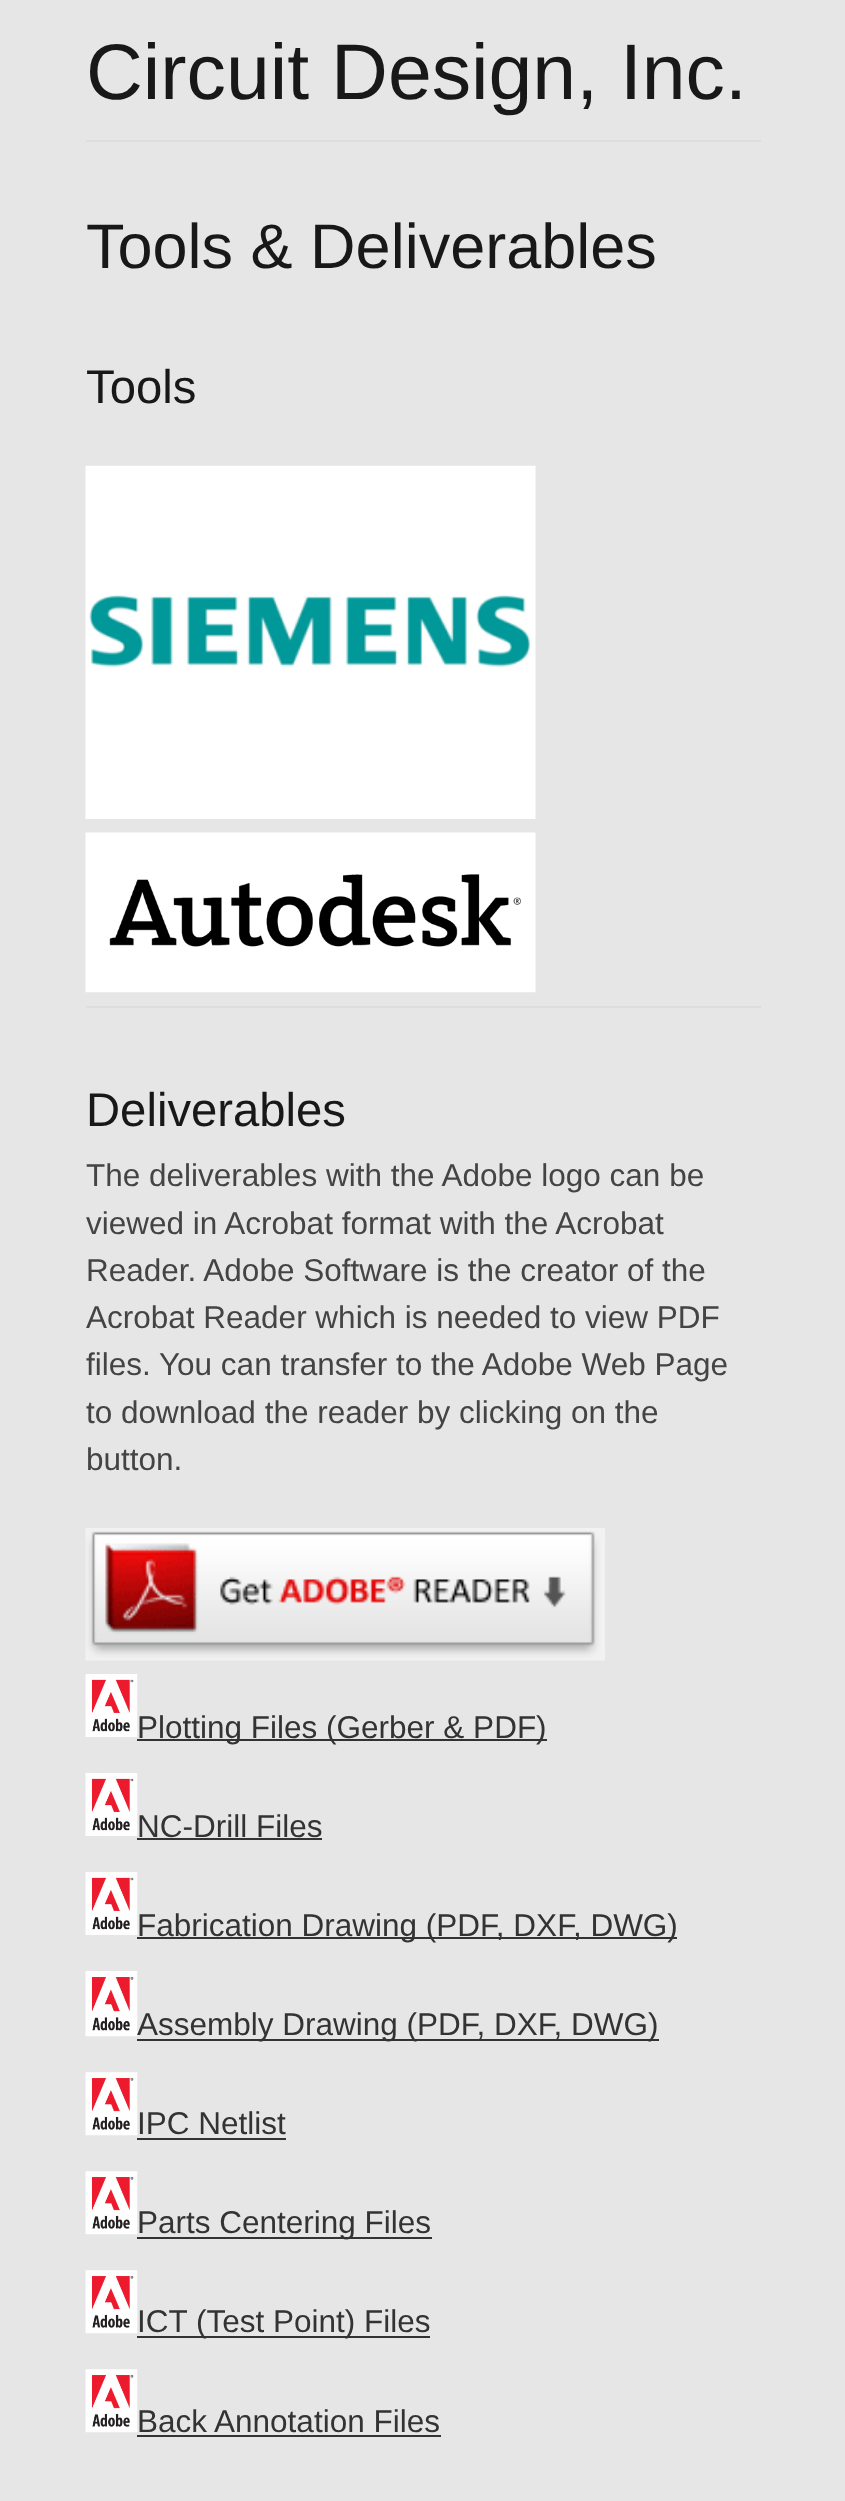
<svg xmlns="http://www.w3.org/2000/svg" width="845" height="2501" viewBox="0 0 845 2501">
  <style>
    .t1 { font: 78.75px Liberation Sans; fill: #181818; }
    .t2 { font: 63px Liberation Sans; fill: #181818; }
    .t3 { font: 47.25px Liberation Sans; fill: #181818; }
    .t4 { font: 31.5px Liberation Sans; fill: #444; }
    .t5 { font: 31.5px Liberation Sans; fill: #333; }
  </style>
  <rect width="100%" height="100%" fill="#e6e6e6"/>
  <text x="86" y="99" class="t1">Circuit Design, Inc.</text>
  <rect x="86" y="140" width="675" height="2" fill="#ddd"/>
  <text x="86" y="268" class="t2">Tools &amp; Deliverables</text>
  <text x="86" y="403" class="t3">Tools</text>
  <image x="85" y="465" width="451" height="354" href="images/1.png"/>
  <image x="85" y="832" width="451" height="161" href="images/2.png"/>
  <rect x="86" y="1006" width="675" height="2" fill="#ddd"/>
  <text x="86" y="1126" class="t3">Deliverables</text>
  <text x="86" y="1186" class="t4">The deliverables with the Adobe logo can be</text>
  <text x="86" y="1234" class="t4">viewed in Acrobat format with the Acrobat</text>
  <text x="86" y="1281" class="t4">Reader. Adobe Software is the creator of the</text>
  <text x="86" y="1328" class="t4">Acrobat Reader which is needed to view PDF</text>
  <text x="86" y="1375" class="t4">files. You can transfer to the Adobe Web Page</text>
  <text x="86" y="1423" class="t4">to download the reader by clicking on the</text>
  <text x="86" y="1470" class="t4">button.</text>
  <image x="85" y="1528" width="520" height="133" href="images/3.png"/>
  <image x="85" y="1674" width="53" height="63" href="images/4.png"/>
  <rect x="137" y="1739" width="410" height="2" fill="#333"/>
  <text x="137" y="1738" class="t5">Plotting Files (Gerber &amp; PDF)</text>
  <image x="85" y="1773" width="53" height="63" href="images/4.png"/>
  <text x="137" y="1837" class="t5">NC-Drill Files</text>
  <rect x="137" y="1838" width="185" height="2" fill="#333"/>
  <image x="85" y="1872" width="53" height="63" href="images/4.png"/>
  <rect x="137" y="1937" width="540" height="2" fill="#333"/>
  <text x="137" y="1936" class="t5">Fabrication Drawing (PDF, DXF, DWG)</text>
  <image x="85" y="1971" width="53" height="66" href="images/5.png"/>
  <rect x="137" y="2039" width="522" height="2" fill="#333"/>
  <text x="137" y="2035" class="t5">Assembly Drawing (PDF, DXF, DWG)</text>
  <image x="85" y="2072" width="53" height="64" href="images/6.png"/>
  <text x="137" y="2134" class="t5">IPC Netlist</text>
  <rect x="137" y="2138" width="149" height="2" fill="#333"/>
  <image x="85" y="2171" width="53" height="64" href="images/6.png"/>
  <rect x="137" y="2237" width="295" height="2" fill="#333"/>
  <text x="137" y="2233" class="t5">Parts Centering Files</text>
  <image x="85" y="2270" width="53" height="64" href="images/6.png"/>
  <rect x="137" y="2336" width="293" height="2" fill="#333"/>
  <text x="137" y="2332" class="t5">ICT (Test Point) Files</text>
  <image x="85" y="2369" width="53" height="64" href="images/6.png"/>
  <text x="137" y="2432" class="t5">Back Annotation Files</text>
  <rect x="137" y="2435" width="304" height="2" fill="#333"/>
</svg>
